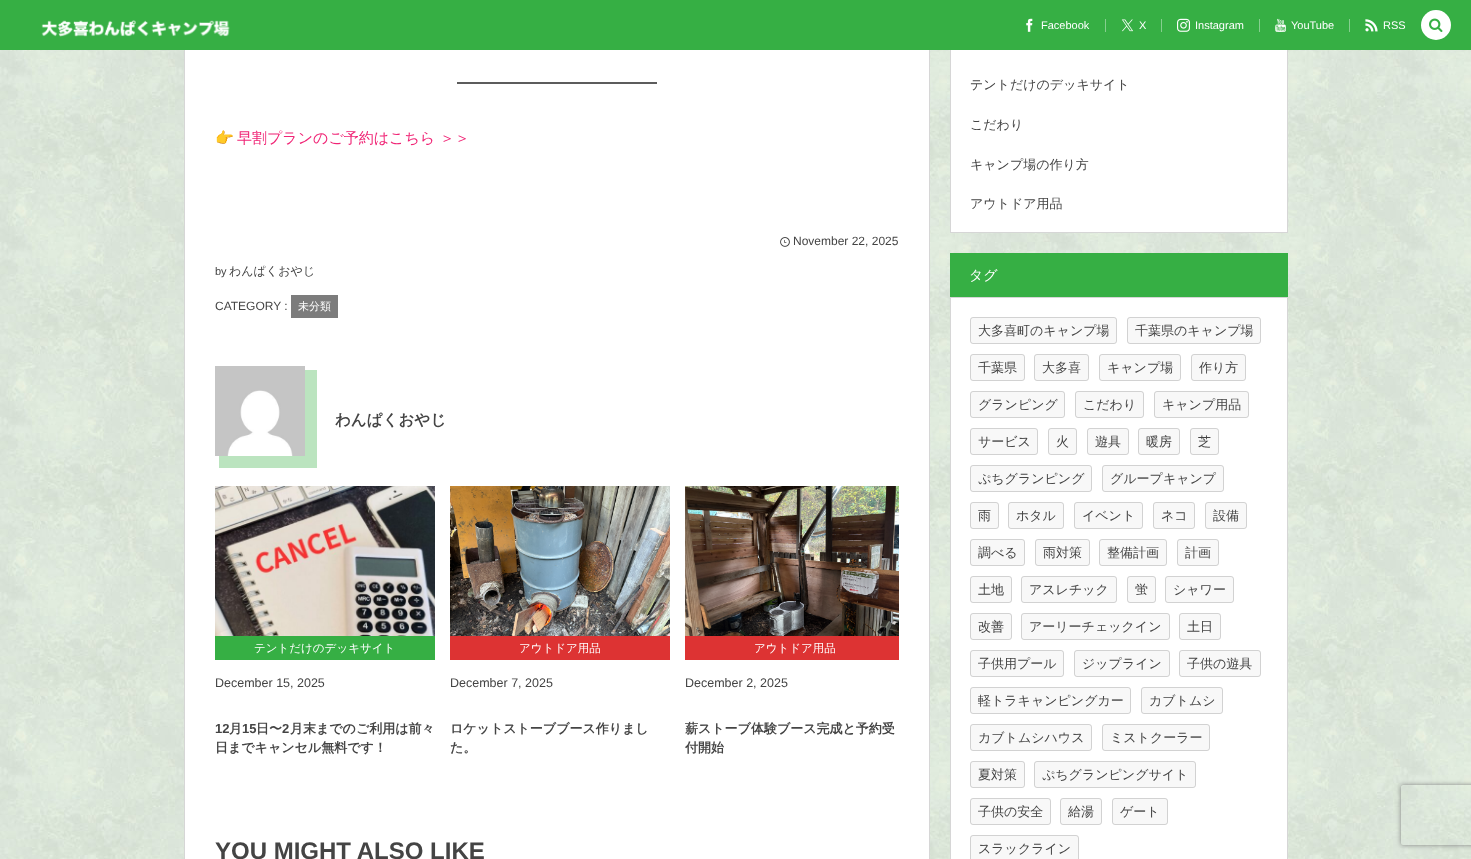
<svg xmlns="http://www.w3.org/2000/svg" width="1471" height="859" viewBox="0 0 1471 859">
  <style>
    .t1 { font: 11px Liberation Sans; fill: #fff; }
    .t2 { font: 15px Noto Color Emoji; fill: #444; }
    .t3 { font: 500 15px WenQuanYi Zen Hei; fill: #f02475; }
    .t4 { font: 12px Liberation Sans; fill: #444; }
    .t5 { font: 11px Liberation Sans; fill: #444; }
    .t6 { font: 500 12px WenQuanYi Zen Hei; fill: #444; }
    .t7 { font: 500 11px WenQuanYi Zen Hei; fill: #fff; }
    .t8 { font: bold 15.5px WenQuanYi Zen Hei; fill: #444; }
    .t9 { font: 500 11.5px WenQuanYi Zen Hei; fill: #fff; }
    .t10 { font: 12.5px Liberation Sans; fill: #444; }
    .t11 { font: bold 13px Liberation Sans; fill: #444; }
    .t12 { font: bold 13px WenQuanYi Zen Hei; fill: #444; }
    .t13 { font: bold 24px Liberation Sans; fill: #444; }
    .t14 { font: 500 13px WenQuanYi Zen Hei; fill: #444; }
    .t15 { font: 500 14px WenQuanYi Zen Hei; fill: #fff; }
  </style>
  <defs>
    <clipPath id="clip1"><path d="M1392 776H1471V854H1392ZM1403 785H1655C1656 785 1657 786 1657 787V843C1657 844 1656 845 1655 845H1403C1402 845 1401 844 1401 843V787C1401 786 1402 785 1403 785Z" clip-rule="evenodd"/></clipPath>
  </defs>
  <rect width="100%" height="100%" fill="#fff"/>
  <image x="0" y="50" width="1471" height="809" href="images/7.png"/>
  <rect x="185" y="50" width="744" height="809" fill="#fff"/>
  <rect x="184.5" y="-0.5" width="745" height="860" fill="none" stroke="#d6d6d6"/>
  <rect x="951" y="50" width="336" height="182" fill="#fff"/>
  <rect x="950.5" y="-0.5" width="337" height="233" fill="none" stroke="#d6d6d6"/>
  <rect x="0" y="0" width="1471" height="50" fill="#36af44"/>
  <image x="41" y="20" width="189" height="17" href="images/1.png"/>
  <image x="1026" y="18" width="7" height="14" href="images/2.png"/>
  <text x="1041" y="29" class="t1">Facebook</text>
  <rect x="1105" y="19" width="1" height="13" fill="#86cf8f"/>
  <image x="1121" y="19" width="12" height="13" href="images/3.png"/>
  <text x="1139" y="29" class="t1">X</text>
  <rect x="1161" y="19" width="1" height="13" fill="#86cf8f"/>
  <image x="1177" y="18" width="13" height="14" href="images/4.png"/>
  <text x="1195" y="29" class="t1">Instagram</text>
  <rect x="1259" y="19" width="1" height="13" fill="#86cf8f"/>
  <image x="1275" y="18" width="11" height="14" href="images/5.png"/>
  <text x="1291" y="29" class="t1">YouTube</text>
  <rect x="1349" y="19" width="1" height="13" fill="#86cf8f"/>
  <image x="1365" y="19" width="13" height="13" href="images/6.png"/>
  <text x="1383" y="29" class="t1">RSS</text>
  <rect x="457" y="82" width="200" height="2" fill="#5c5c5c"/>
  <text x="215" y="143" class="t2">👉</text>
  <text x="237" y="143" class="t3">早割プランのご予約はこちら ＞＞</text>
  <image x="780" y="237" width="10" height="10" href="images/8.png"/>
  <text x="793" y="245" class="t4">November 22, 2025</text>
  <text x="215" y="275" class="t5">by</text>
  <text x="229" y="275" class="t6">わんぱくおやじ</text>
  <text x="215" y="310" class="t4">CATEGORY :</text>
  <rect x="291" y="295" width="47" height="23" fill="#7c7c7c"/>
  <text x="298" y="310" class="t7">未分類</text>
  <rect x="219" y="370" width="98" height="98" fill="#bbe4bf"/>
  <image x="215" y="366" width="90" height="90" href="images/9.png"/>
  <text x="335" y="425" class="t8">わんぱくおやじ</text>
  <image x="215" y="486" width="220" height="150" href="images/10.png"/>
  <rect x="215" y="636" width="220" height="24" fill="#36af44"/>
  <text x="254" y="652" class="t9">テントだけのデッキサイト</text>
  <text x="215" y="687" class="t10">December 15, 2025</text>
  <text x="215" y="733" class="t11">12</text>
  <text x="229" y="733" class="t12">月</text>
  <text x="242" y="733" class="t11">15</text>
  <text x="256" y="733" class="t12">日〜</text>
  <text x="282" y="733" class="t11">2</text>
  <text x="290" y="733" class="t12">月末までのご利用は前々</text>
  <text x="215" y="752" class="t12">日までキャンセル無料です！</text>
  <image x="450" y="486" width="220" height="150" href="images/11.png"/>
  <rect x="450" y="636" width="220" height="24" fill="#d33"/>
  <text x="519" y="652" class="t9">アウトドア用品</text>
  <text x="450" y="687" class="t10">December 7, 2025</text>
  <text x="450" y="733" class="t12">ロケットストーブブース作りまし</text>
  <text x="450" y="752" class="t12">た。</text>
  <image x="685" y="486" width="214" height="150" href="images/12.png"/>
  <rect x="685" y="636" width="214" height="24" fill="#d33"/>
  <text x="754" y="652" class="t9">アウトドア用品</text>
  <text x="685" y="687" class="t10">December 2, 2025</text>
  <text x="685" y="733" class="t12">薪ストーブ体験ブース完成と予約受</text>
  <text x="685" y="752" class="t12">付開始</text>
  <text x="215" y="859" class="t13">YOU MIGHT ALSO LIKE</text>
  <text x="970" y="89" class="t14">テントだけのデッキサイト</text>
  <text x="970" y="129" class="t14">こだわり</text>
  <text x="970" y="169" class="t14">キャンプ場の作り方</text>
  <text x="970" y="208" class="t14">アウトドア用品</text>
  <rect x="950" y="253" width="338" height="44" fill="#36af44"/>
  <text x="969" y="280" class="t15">タグ</text>
  <rect x="950.5" y="297.5" width="337" height="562" fill="#fff" stroke="#d6d6d6"/>
  <rect x="970" y="317" width="147" height="27" rx="3" fill="#f8f8f8"/>
  <rect x="970.5" y="317.5" width="146" height="26" rx="2.5" fill="none" stroke="#aaaaaa7a"/>
  <text x="978" y="335" class="t14">大多喜町のキャンプ場</text>
  <rect x="1127" y="317" width="134" height="27" rx="3" fill="#f8f8f8"/>
  <rect x="1127.5" y="317.5" width="133" height="26" rx="2.5" fill="none" stroke="#aaaaaa7a"/>
  <text x="1135" y="335" class="t14">千葉県のキャンプ場</text>
  <rect x="970" y="354" width="55" height="27" rx="3" fill="#f8f8f8"/>
  <rect x="970.5" y="354.5" width="54" height="26" rx="2.5" fill="none" stroke="#aaaaaa7a"/>
  <text x="978" y="372" class="t14">千葉県</text>
  <rect x="1034" y="354" width="55" height="27" rx="3" fill="#f8f8f8"/>
  <rect x="1034.5" y="354.5" width="54" height="26" rx="2.5" fill="none" stroke="#aaaaaa7a"/>
  <text x="1042" y="372" class="t14">大多喜</text>
  <rect x="1099" y="354" width="82" height="27" rx="3" fill="#f8f8f8"/>
  <rect x="1099.5" y="354.5" width="81" height="26" rx="2.5" fill="none" stroke="#aaaaaa7a"/>
  <text x="1107" y="372" class="t14">キャンプ場</text>
  <rect x="1191" y="354" width="55" height="27" rx="3" fill="#f8f8f8"/>
  <rect x="1191.5" y="354.5" width="54" height="26" rx="2.5" fill="none" stroke="#aaaaaa7a"/>
  <text x="1199" y="372" class="t14">作り方</text>
  <rect x="970" y="391" width="95" height="27" rx="3" fill="#f8f8f8"/>
  <rect x="970.5" y="391.5" width="94" height="26" rx="2.5" fill="none" stroke="#aaaaaa7a"/>
  <text x="978" y="409" class="t14">グランピング</text>
  <rect x="1075" y="391" width="69" height="27" rx="3" fill="#f8f8f8"/>
  <rect x="1075.5" y="391.5" width="68" height="26" rx="2.5" fill="none" stroke="#aaaaaa7a"/>
  <text x="1083" y="409" class="t14">こだわり</text>
  <rect x="1154" y="391" width="95" height="27" rx="3" fill="#f8f8f8"/>
  <rect x="1154.5" y="391.5" width="94" height="26" rx="2.5" fill="none" stroke="#aaaaaa7a"/>
  <text x="1162" y="409" class="t14">キャンプ用品</text>
  <rect x="970" y="428" width="68" height="27" rx="3" fill="#f8f8f8"/>
  <rect x="970.5" y="428.5" width="67" height="26" rx="2.5" fill="none" stroke="#aaaaaa7a"/>
  <text x="978" y="446" class="t14">サービス</text>
  <rect x="1048" y="428" width="29" height="27" rx="3" fill="#f8f8f8"/>
  <rect x="1048.5" y="428.5" width="28" height="26" rx="2.5" fill="none" stroke="#aaaaaa7a"/>
  <text x="1056" y="446" class="t14">火</text>
  <rect x="1087" y="428" width="42" height="27" rx="3" fill="#f8f8f8"/>
  <rect x="1087.5" y="428.5" width="41" height="26" rx="2.5" fill="none" stroke="#aaaaaa7a"/>
  <text x="1095" y="446" class="t14">遊具</text>
  <rect x="1138" y="428" width="42" height="27" rx="3" fill="#f8f8f8"/>
  <rect x="1138.5" y="428.5" width="41" height="26" rx="2.5" fill="none" stroke="#aaaaaa7a"/>
  <text x="1146" y="446" class="t14">暖房</text>
  <rect x="1190" y="428" width="29" height="27" rx="3" fill="#f8f8f8"/>
  <rect x="1190.5" y="428.5" width="28" height="26" rx="2.5" fill="none" stroke="#aaaaaa7a"/>
  <text x="1198" y="446" class="t14">芝</text>
  <rect x="970" y="465" width="122" height="27" rx="3" fill="#f8f8f8"/>
  <rect x="970.5" y="465.5" width="121" height="26" rx="2.5" fill="none" stroke="#aaaaaa7a"/>
  <text x="978" y="483" class="t14">ぷちグランピング</text>
  <rect x="1102" y="465" width="122" height="27" rx="3" fill="#f8f8f8"/>
  <rect x="1102.5" y="465.5" width="121" height="26" rx="2.5" fill="none" stroke="#aaaaaa7a"/>
  <text x="1110" y="483" class="t14">グループキャンプ</text>
  <rect x="970" y="502" width="29" height="27" rx="3" fill="#f8f8f8"/>
  <rect x="970.5" y="502.5" width="28" height="26" rx="2.5" fill="none" stroke="#aaaaaa7a"/>
  <text x="978" y="520" class="t14">雨</text>
  <rect x="1008" y="502" width="56" height="27" rx="3" fill="#f8f8f8"/>
  <rect x="1008.5" y="502.5" width="55" height="26" rx="2.5" fill="none" stroke="#aaaaaa7a"/>
  <text x="1016" y="520" class="t14">ホタル</text>
  <rect x="1074" y="502" width="69" height="27" rx="3" fill="#f8f8f8"/>
  <rect x="1074.5" y="502.5" width="68" height="26" rx="2.5" fill="none" stroke="#aaaaaa7a"/>
  <text x="1082" y="520" class="t14">イベント</text>
  <rect x="1153" y="502" width="42" height="27" rx="3" fill="#f8f8f8"/>
  <rect x="1153.5" y="502.5" width="41" height="26" rx="2.5" fill="none" stroke="#aaaaaa7a"/>
  <text x="1161" y="520" class="t14">ネコ</text>
  <rect x="1205" y="502" width="42" height="27" rx="3" fill="#f8f8f8"/>
  <rect x="1205.5" y="502.5" width="41" height="26" rx="2.5" fill="none" stroke="#aaaaaa7a"/>
  <text x="1213" y="520" class="t14">設備</text>
  <rect x="970" y="539" width="55" height="27" rx="3" fill="#f8f8f8"/>
  <rect x="970.5" y="539.5" width="54" height="26" rx="2.5" fill="none" stroke="#aaaaaa7a"/>
  <text x="978" y="557" class="t14">調べる</text>
  <rect x="1035" y="539" width="55" height="27" rx="3" fill="#f8f8f8"/>
  <rect x="1035.5" y="539.5" width="54" height="26" rx="2.5" fill="none" stroke="#aaaaaa7a"/>
  <text x="1043" y="557" class="t14">雨対策</text>
  <rect x="1099" y="539" width="68" height="27" rx="3" fill="#f8f8f8"/>
  <rect x="1099.5" y="539.5" width="67" height="26" rx="2.5" fill="none" stroke="#aaaaaa7a"/>
  <text x="1107" y="557" class="t14">整備計画</text>
  <rect x="1177" y="539" width="42" height="27" rx="3" fill="#f8f8f8"/>
  <rect x="1177.5" y="539.5" width="41" height="26" rx="2.5" fill="none" stroke="#aaaaaa7a"/>
  <text x="1185" y="557" class="t14">計画</text>
  <rect x="970" y="576" width="42" height="27" rx="3" fill="#f8f8f8"/>
  <rect x="970.5" y="576.5" width="41" height="26" rx="2.5" fill="none" stroke="#aaaaaa7a"/>
  <text x="978" y="594" class="t14">土地</text>
  <rect x="1021" y="576" width="96" height="27" rx="3" fill="#f8f8f8"/>
  <rect x="1021.5" y="576.5" width="95" height="26" rx="2.5" fill="none" stroke="#aaaaaa7a"/>
  <text x="1029" y="594" class="t14">アスレチック</text>
  <rect x="1127" y="576" width="29" height="27" rx="3" fill="#f8f8f8"/>
  <rect x="1127.5" y="576.5" width="28" height="26" rx="2.5" fill="none" stroke="#aaaaaa7a"/>
  <text x="1135" y="594" class="t14">蛍</text>
  <rect x="1165" y="576" width="69" height="27" rx="3" fill="#f8f8f8"/>
  <rect x="1165.5" y="576.5" width="68" height="26" rx="2.5" fill="none" stroke="#aaaaaa7a"/>
  <text x="1173" y="594" class="t14">シャワー</text>
  <rect x="970" y="613" width="42" height="27" rx="3" fill="#f8f8f8"/>
  <rect x="970.5" y="613.5" width="41" height="26" rx="2.5" fill="none" stroke="#aaaaaa7a"/>
  <text x="978" y="631" class="t14">改善</text>
  <rect x="1021" y="613" width="149" height="27" rx="3" fill="#f8f8f8"/>
  <rect x="1021.5" y="613.5" width="148" height="26" rx="2.5" fill="none" stroke="#aaaaaa7a"/>
  <text x="1029" y="631" class="t14">アーリーチェックイン</text>
  <rect x="1179" y="613" width="42" height="27" rx="3" fill="#f8f8f8"/>
  <rect x="1179.5" y="613.5" width="41" height="26" rx="2.5" fill="none" stroke="#aaaaaa7a"/>
  <text x="1187" y="631" class="t14">土日</text>
  <rect x="970" y="650" width="94" height="27" rx="3" fill="#f8f8f8"/>
  <rect x="970.5" y="650.5" width="93" height="26" rx="2.5" fill="none" stroke="#aaaaaa7a"/>
  <text x="978" y="668" class="t14">子供用プール</text>
  <rect x="1074" y="650" width="96" height="27" rx="3" fill="#f8f8f8"/>
  <rect x="1074.5" y="650.5" width="95" height="26" rx="2.5" fill="none" stroke="#aaaaaa7a"/>
  <text x="1082" y="668" class="t14">ジップライン</text>
  <rect x="1179" y="650" width="82" height="27" rx="3" fill="#f8f8f8"/>
  <rect x="1179.5" y="650.5" width="81" height="26" rx="2.5" fill="none" stroke="#aaaaaa7a"/>
  <text x="1187" y="668" class="t14">子供の遊具</text>
  <rect x="970" y="687" width="161" height="27" rx="3" fill="#f8f8f8"/>
  <rect x="970.5" y="687.5" width="160" height="26" rx="2.5" fill="none" stroke="#aaaaaa7a"/>
  <text x="978" y="705" class="t14">軽トラキャンピングカー</text>
  <rect x="1141" y="687" width="82" height="27" rx="3" fill="#f8f8f8"/>
  <rect x="1141.5" y="687.5" width="81" height="26" rx="2.5" fill="none" stroke="#aaaaaa7a"/>
  <text x="1149" y="705" class="t14">カブトムシ</text>
  <rect x="970" y="724" width="122" height="27" rx="3" fill="#f8f8f8"/>
  <rect x="970.5" y="724.5" width="121" height="26" rx="2.5" fill="none" stroke="#aaaaaa7a"/>
  <text x="978" y="742" class="t14">カブトムシハウス</text>
  <rect x="1102" y="724" width="108" height="27" rx="3" fill="#f8f8f8"/>
  <rect x="1102.5" y="724.5" width="107" height="26" rx="2.5" fill="none" stroke="#aaaaaa7a"/>
  <text x="1110" y="742" class="t14">ミストクーラー</text>
  <rect x="970" y="761" width="55" height="27" rx="3" fill="#f8f8f8"/>
  <rect x="970.5" y="761.5" width="54" height="26" rx="2.5" fill="none" stroke="#aaaaaa7a"/>
  <text x="978" y="779" class="t14">夏対策</text>
  <rect x="1034" y="761" width="162" height="27" rx="3" fill="#f8f8f8"/>
  <rect x="1034.5" y="761.5" width="161" height="26" rx="2.5" fill="none" stroke="#aaaaaa7a"/>
  <text x="1042" y="779" class="t14">ぷちグランピングサイト</text>
  <rect x="970" y="798" width="81" height="27" rx="3" fill="#f8f8f8"/>
  <rect x="970.5" y="798.5" width="80" height="26" rx="2.5" fill="none" stroke="#aaaaaa7a"/>
  <text x="978" y="816" class="t14">子供の安全</text>
  <rect x="1060" y="798" width="42" height="27" rx="3" fill="#f8f8f8"/>
  <rect x="1060.5" y="798.5" width="41" height="26" rx="2.5" fill="none" stroke="#aaaaaa7a"/>
  <text x="1068" y="816" class="t14">給湯</text>
  <rect x="1112" y="798" width="56" height="27" rx="3" fill="#f8f8f8"/>
  <rect x="1112.5" y="798.5" width="55" height="26" rx="2.5" fill="none" stroke="#aaaaaa7a"/>
  <text x="1120" y="816" class="t14">ゲート</text>
  <rect x="970" y="835" width="109" height="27" rx="3" fill="#f8f8f8"/>
  <rect x="970.5" y="835.5" width="108" height="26" rx="2.5" fill="none" stroke="#aaaaaa7a"/>
  <text x="978" y="853" class="t14">スラックライン</text>
  <circle cx="1436" cy="25" r="15" fill="#fff"/>
  <image x="1429" y="18" width="14" height="14" href="images/13.png"/>
  <g clip-path="url(#clip1)">
    <rect x="1401" y="785" width="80" height="60" rx="2" fill="#808080" filter="blur(2.5px)"/>
  </g>
</svg>
